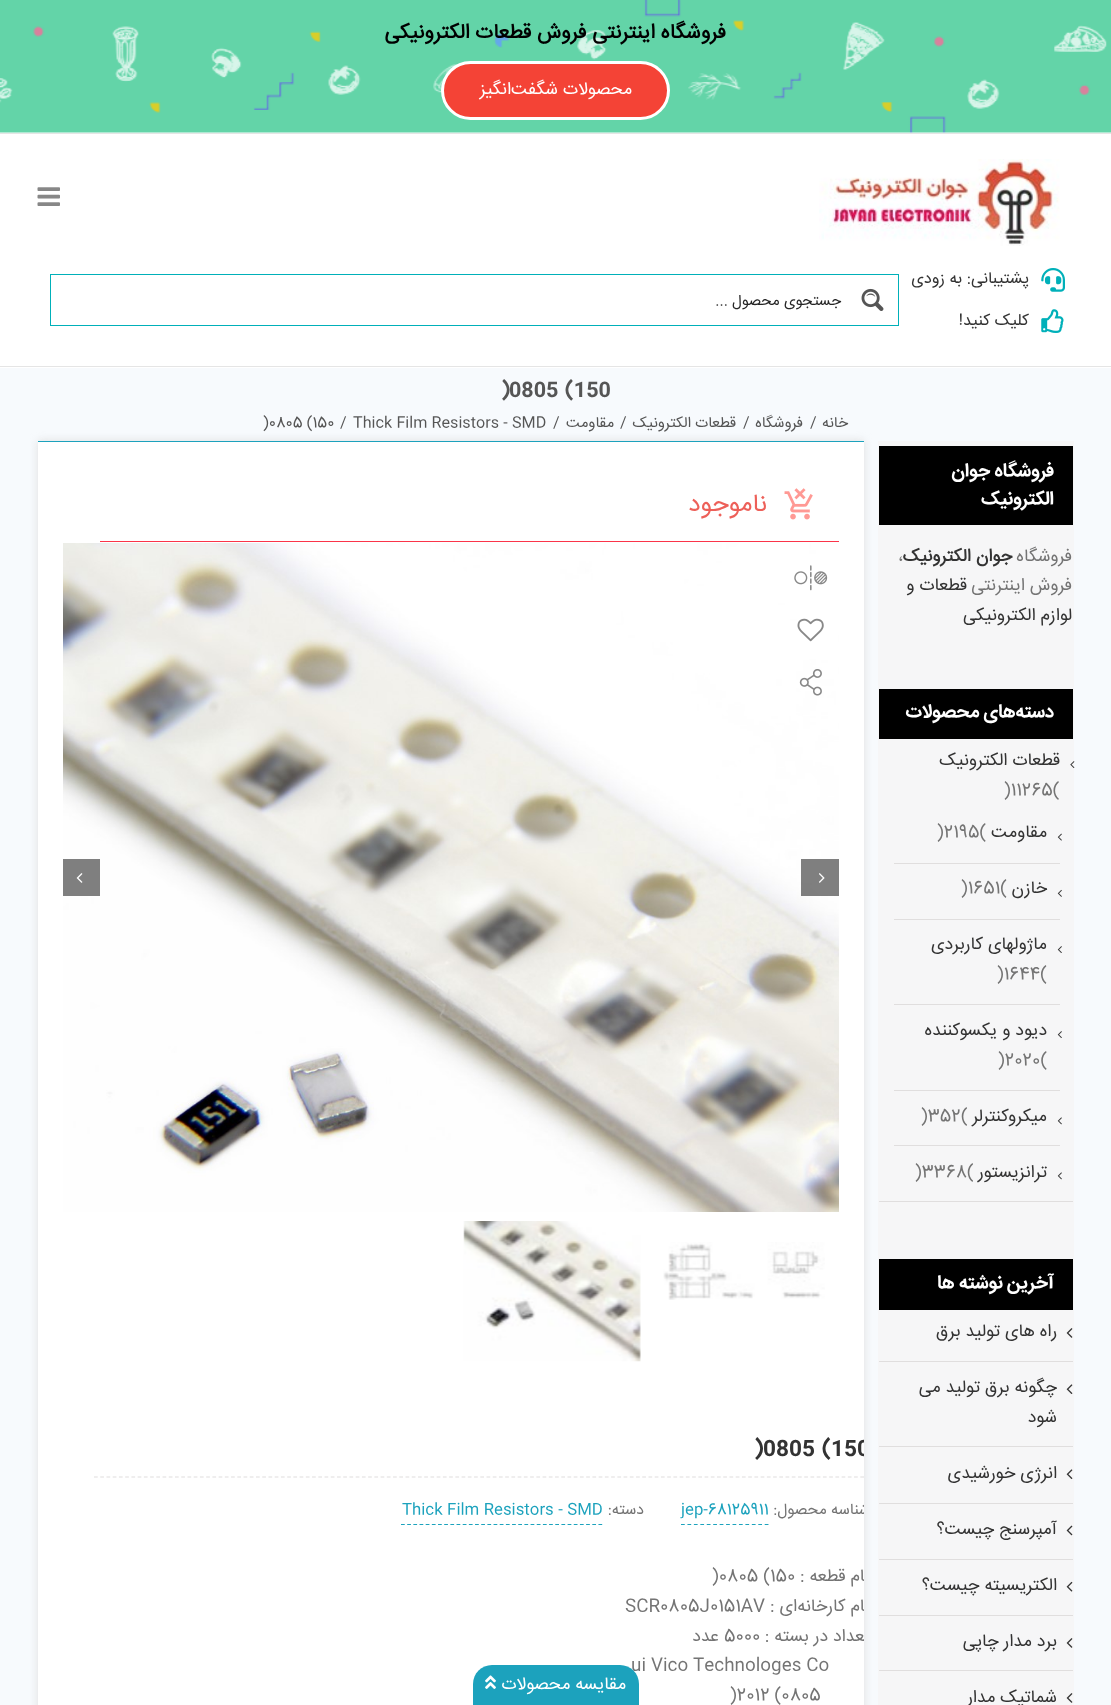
<svg xmlns="http://www.w3.org/2000/svg" width="1111" height="1705" viewBox="0 0 1111 1705">
  <style>
    .t1 { font: bold 20.5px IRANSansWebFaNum; direction: rtl; fill: #000; }
    .t2 { font: 17.5px IRANSansWebFaNum; direction: rtl; fill: #fff; }
    .t3 { font: 16.25px IRANSansWebFaNum; direction: rtl; fill: #333; }
    .t4 { font: 15px IRANSansWebFaNum; direction: rtl; fill: #262626; }
    .t5 { font: bold 20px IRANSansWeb; fill: #555; }
    .t6 { font: 15px IRANSansWebFaNum; direction: rtl; fill: #555; }
    .t7 { font: 15px IRANSansWebFaNum; fill: #555; }
    .t8 { font: bold 18.75px IRANSansWeb; direction: rtl; fill: #fff; }
    .t9 { font: 17.5px IRANSansWebFaNum; direction: rtl; fill: #747474; }
    .t10 { font: bold 17.5px IRANSansWebFaNum; direction: rtl; fill: #333; }
    .t11 { font: 17.5px IRANSansWebFaNum; fill: #747474; }
    .t12 { font: 17.5px IRANSansWebFaNum; direction: rtl; fill: #333; }
    .t13 { font: 25px IRANSansWebFaNum; direction: rtl; fill: #ed6059; }
    .t14 { font: bold 21px IRANSansWeb; fill: #333; }
    .t15 { font: 15.6px IRANSansWebFaNum; direction: rtl; fill: #747474; }
    .t16 { font: 15.6px IRANSansWebFaNum; fill: #1ca2bd; }
  </style>
  <defs>
    <clipPath id="clip1"><rect x="38" y="443" width="826" height="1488"/></clipPath>
  </defs>
  <rect width="100%" height="100%" fill="#fff"/>
  <image x="0" y="0" width="1111" height="133" href="images/1.png"/>
  <text x="726" y="38" class="t1">فروشگاه اینترنتی فروش قطعات الکترونیکی</text>
  <rect x="442.5" y="62.5" width="226" height="56" rx="28" fill="#f44336" stroke="#fff" stroke-width="3"/>
  <text x="632" y="94" class="t2">محصولات شگفت‌انگیز</text>
  <rect x="0" y="133" width="1111" height="1" fill="#e5e5e5"/>
  <rect x="0" y="366" width="1111" height="1" fill="#e5e5e5"/>
  <image x="37" y="187" width="23" height="19" href="images/2.png"/>
  <image x="819" y="159" width="241" height="87" href="images/3.png"/>
  <image x="1041" y="268" width="24" height="24" href="images/4.png"/>
  <text x="1029" y="283" class="t3">پشتیبانی: به زودی</text>
  <image x="1041" y="309" width="23" height="24" href="images/5.png"/>
  <text x="1029" y="325" class="t3">کلیک کنید!</text>
  <rect x="50.5" y="274.5" width="848" height="51" fill="none" stroke="#00b0b9"/>
  <image x="861" y="288" width="23" height="23" href="images/6.png"/>
  <text x="841" y="305" class="t4">جستجوی محصول ...</text>
  <rect x="0" y="368" width="1111" height="1337" fill="#f7fafd"/>
  <text x="565" y="396" class="t5">(150</text>
  <text x="509" y="396" class="t5">0805</text>
  <text x="501" y="396" class="t5">)</text>
  <text x="848" y="427" class="t6">خانه</text>
  <text x="810" y="427" class="t7">/</text>
  <text x="803" y="427" class="t6">فروشگاه</text>
  <text x="743" y="427" class="t7">/</text>
  <text x="736" y="427" class="t6">قطعات الکترونیک</text>
  <text x="620" y="427" class="t7">/</text>
  <text x="614" y="427" class="t6">مقاومت</text>
  <text x="553" y="427" class="t7">/</text>
  <text x="353" y="427" class="t7">Thick Film Resistors - SMD</text>
  <text x="340" y="427" class="t7">/</text>
  <text x="263" y="427" class="t7">)0805 (150</text>
  <rect x="878" y="441" width="196" height="1264" fill="#f6f6f7"/>
  <rect x="879" y="446" width="194" height="79" fill="#000"/>
  <text x="1054" y="476" class="t8">فروشگاه جوان</text>
  <text x="1054" y="504" class="t8">الکترونیک</text>
  <text x="1072" y="561" class="t9">فروشگاه</text>
  <text x="1012" y="561" class="t10">جوان الکترونیک</text>
  <text x="898" y="561" class="t11">،</text>
  <text x="1072" y="590" class="t9">فروش اینترنتی</text>
  <text x="967" y="590" class="t12">قطعات و</text>
  <text x="1072" y="620" class="t12">لوازم الکترونیکی</text>
  <rect x="879" y="689" width="194" height="50" fill="#000"/>
  <text x="1054" y="717" class="t8">دسته‌های محصولات</text>
  <rect x="879" y="1201" width="194" height="1" fill="#e0dede"/>
  <image x="1070" y="761" width="5" height="7" href="images/7.png"/>
  <text x="1060" y="765" class="t12">قطعات الکترونیک</text>
  <text x="1004" y="795" class="t11">)11265(</text>
  <rect x="894" y="863" width="166" height="1" fill="#e0dede"/>
  <image x="1057" y="833" width="5" height="8" href="images/8.png"/>
  <text x="1047" y="837" class="t12">مقاومت</text>
  <text x="937" y="837" class="t11">)2195(</text>
  <rect x="894" y="919" width="166" height="1" fill="#e0dede"/>
  <image x="1057" y="889" width="5" height="8" href="images/9.png"/>
  <text x="1047" y="893" class="t12">خازن</text>
  <text x="961" y="893" class="t11">)1651(</text>
  <rect x="894" y="1004" width="166" height="1" fill="#e0dede"/>
  <image x="1057" y="946" width="5" height="7" href="images/10.png"/>
  <text x="1047" y="949" class="t12">ماژولهای کاربردی</text>
  <text x="997" y="979" class="t11">)1644(</text>
  <rect x="894" y="1090" width="166" height="1" fill="#e0dede"/>
  <image x="1057" y="1031" width="5" height="7" href="images/10.png"/>
  <text x="1047" y="1035" class="t12">دیود و یکسوکننده</text>
  <text x="998" y="1065" class="t11">)2020(</text>
  <rect x="894" y="1145" width="166" height="1" fill="#e0dede"/>
  <image x="1057" y="1117" width="5" height="8" href="images/11.png"/>
  <text x="1047" y="1121" class="t12">میکروکنترلر</text>
  <text x="921" y="1121" class="t11">)352(</text>
  <image x="1057" y="1172" width="5" height="8" href="images/11.png"/>
  <text x="1047" y="1177" class="t12">ترانزیستور</text>
  <text x="915" y="1177" class="t11">)3368(</text>
  <rect x="879" y="1259" width="194" height="51" fill="#000"/>
  <text x="1054" y="1288" class="t8">آخرین نوشته ها</text>
  <rect x="879" y="1361" width="194" height="1" fill="#e0dede"/>
  <image x="1066" y="1328" width="7" height="10" href="images/12.png"/>
  <text x="1057" y="1336" class="t12">راه های تولید برق</text>
  <rect x="879" y="1446" width="194" height="1" fill="#e0dede"/>
  <image x="1066" y="1384" width="7" height="10" href="images/13.png"/>
  <text x="1057" y="1392" class="t12">چگونه برق تولید می</text>
  <text x="1057" y="1422" class="t12">شود</text>
  <rect x="879" y="1503" width="194" height="1" fill="#e0dede"/>
  <image x="1066" y="1469" width="7" height="10" href="images/13.png"/>
  <text x="1057" y="1478" class="t12">انرژی خورشیدی</text>
  <rect x="879" y="1559" width="194" height="1" fill="#e0dede"/>
  <image x="1066" y="1525" width="7" height="11" href="images/14.png"/>
  <text x="1057" y="1534" class="t12">آمپرسنج چیست؟</text>
  <rect x="879" y="1615" width="194" height="1" fill="#e0dede"/>
  <image x="1066" y="1581" width="7" height="11" href="images/15.png"/>
  <text x="1057" y="1590" class="t12">الکتریسیته چیست؟</text>
  <rect x="879" y="1670" width="194" height="1" fill="#e0dede"/>
  <image x="1066" y="1638" width="7" height="10" href="images/12.png"/>
  <text x="1057" y="1646" class="t12">برد مدار چاپی</text>
  <image x="1066" y="1693" width="7" height="10" href="images/12.png"/>
  <text x="1057" y="1702" class="t12">شماتیک مدار</text>
  <rect x="38" y="441" width="826" height="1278" fill="#ddd" filter="blur(4.5px)"/>
  <rect x="38" y="442" width="826" height="1263" fill="#fff"/>
  <rect x="38" y="441" width="826" height="1" fill="#1ca2bd"/>
  <rect x="100" y="541" width="739" height="1" fill="#fb3449"/>
  <image x="784" y="488" width="29" height="32" href="images/16.png"/>
  <text x="767" y="511" class="t13">ناموجود</text>
  <image x="63" y="543" width="776" height="669" href="images/17.png"/>
  <rect x="801" y="859" width="38" height="37" fill="#00000080"/>
  <image x="819" y="873" width="6" height="10" href="images/18.png"/>
  <rect x="63" y="859" width="37" height="37" fill="#7f7f7f"/>
  <image x="76" y="873" width="7" height="10" href="images/19.png"/>
  <image x="663" y="1242" width="162" height="58" href="images/20.png"/>
  <image x="463" y="1221" width="178" height="141" href="images/21.png"/>
  <image x="794" y="565" width="34" height="26" href="images/22.png"/>
  <image x="797" y="618" width="27" height="24" href="images/23.png"/>
  <image x="799" y="669" width="23" height="27" href="images/24.png"/>
  <g clip-path="url(#clip1)">
    <text x="831" y="1455" class="t14">150</text>
  </g>
  <text x="822" y="1455" class="t14">(</text>
  <text x="763" y="1455" class="t14">0805</text>
  <text x="754" y="1455" class="t14">)</text>
  <g clip-path="url(#clip1)">
    <path d="M94 1477H870" fill="none" stroke="#e0dede" stroke-width="1.2" stroke-dasharray="3.75 2.48"/>
    <text x="870" y="1514" class="t15">شناسه محصول:</text>
  </g>
  <text x="681" y="1514" class="t16">jep-68125911</text>
  <path d="M681 1524.5H769" fill="none" stroke="#1ca2bd" stroke-width="1.2" stroke-dasharray="3.75 2.69"/>
  <text x="644" y="1514" class="t15">دسته:</text>
  <text x="402" y="1514" class="t16">Thick Film Resistors - SMD</text>
  <path d="M401 1524.5H602.5" fill="none" stroke="#1ca2bd" stroke-width="1.2" stroke-dasharray="3.75 2.42"/>
  <g clip-path="url(#clip1)">
    <text x="870" y="1581" class="t9">نام قطعه :</text>
  </g>
  <text x="712" y="1581" class="t11">)0805 (150</text>
  <g clip-path="url(#clip1)">
    <text x="870" y="1611" class="t9">نام کارخانه‌ای :</text>
  </g>
  <text x="625" y="1611" class="t11">SCR0805J0151AV</text>
  <g clip-path="url(#clip1)">
    <text x="870" y="1641" class="t9">تعداد در بسته :</text>
  </g>
  <text x="724" y="1641" class="t11">5000</text>
  <text x="719" y="1641" class="t9">عدد</text>
  <text x="631" y="1670" class="t11">ui Vico Technologes Co</text>
  <text x="730" y="1700" class="t11">)2012 (0805</text>
  <path d="M492 1665H620C630.5 1665 639 1673.5 639 1684V1705H473V1684C473 1673.5 481.5 1665 492 1665Z" fill="#1ca2bd"/>
  <text x="626" y="1689" class="t2">مقایسه محصولات</text>
  <image x="485" y="1675" width="11" height="14" href="images/25.png"/>
</svg>
